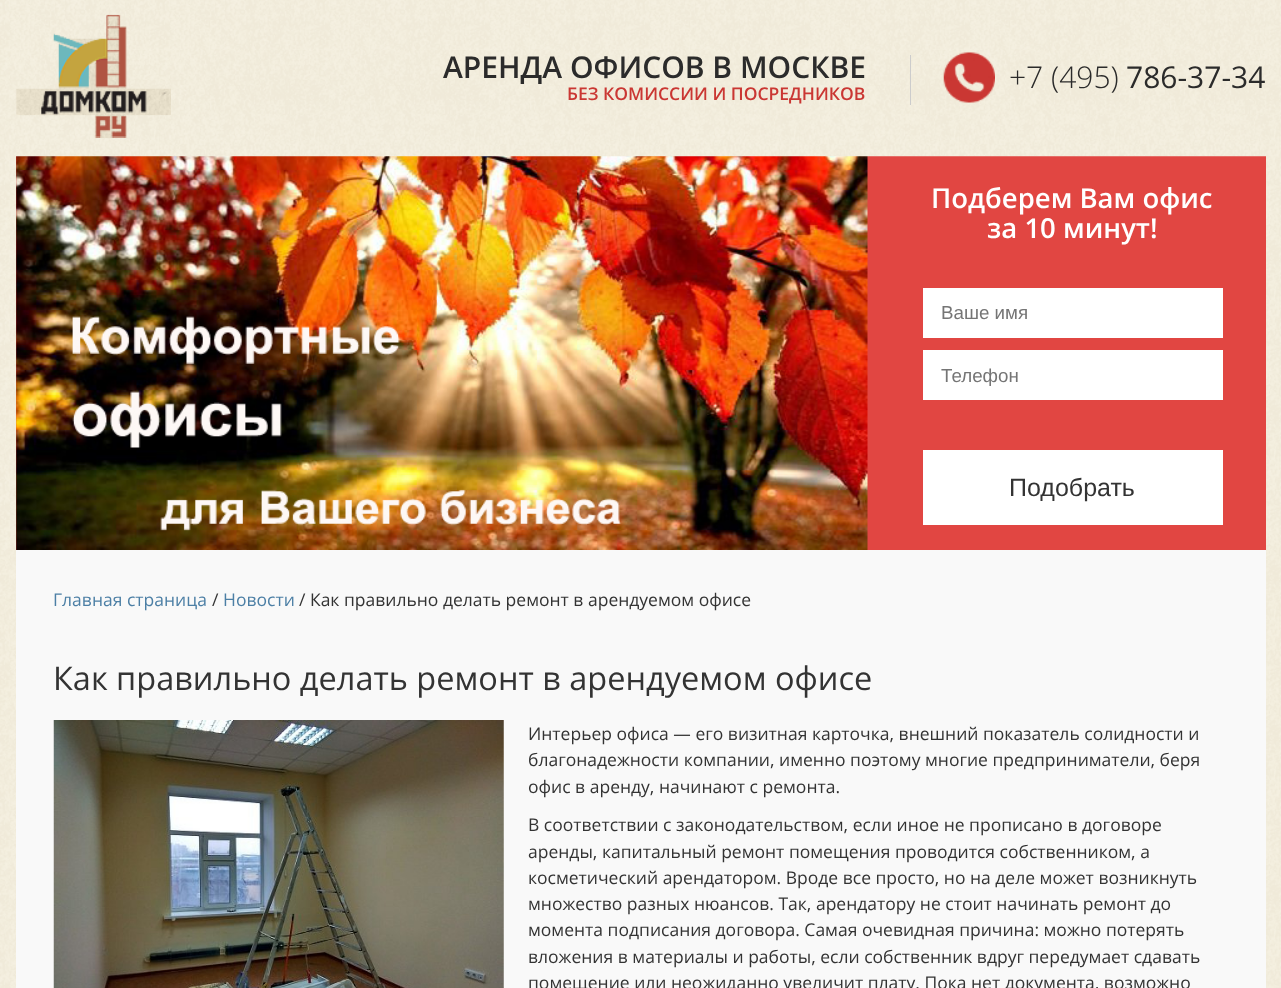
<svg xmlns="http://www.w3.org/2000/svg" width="1281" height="988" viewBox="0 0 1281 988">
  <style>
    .t1 { font: 600 30px Open Sans; fill: #2b2b2b; }
    .t2 { font: 600 17.5px Open Sans; fill: #ca3733; }
    .t3 { font: 300 30px Open Sans; fill: #2b2b2b; }
    .t4 { font: 30px Open Sans; fill: #2b2b2b; }
    .t5 { font: 600 27.5px Open Sans; fill: #fff; }
    .t6 { font: 18.75px Liberation Sans; fill: #757575; }
    .t7 { font: 25px Liberation Sans; fill: #333; }
    .t8 { font: 17.5px Open Sans; fill: #4c7fa5; }
    .t9 { font: 17.5px Open Sans; fill: #333; }
    .t10 { font: 32.5px Open Sans; fill: #333; }
  </style>
  <rect width="100%" height="100%" fill="#fff"/>
  <image x="0" y="0" width="1281" height="988" href="images/1.png"/>
  <rect x="16" y="550" width="1250" height="438" fill="#f9f9f9"/>
  <rect x="16" y="156" width="1250" height="394" fill="#e14642"/>
  <image x="16" y="156" width="852" height="394" href="images/5.png"/>
  <image x="16" y="150" width="1250" height="7" href="images/2.png"/>
  <image x="16" y="14" width="155" height="124" href="images/3.png"/>
  <rect x="910" y="55" width="1" height="50" fill="#ccc"/>
  <text x="443" y="78" class="t1">АРЕНДА ОФИСОВ В МОСКВЕ</text>
  <text x="567" y="100" class="t2">БЕЗ КОМИССИИ И ПОСРЕДНИКОВ</text>
  <image x="943" y="52" width="52" height="51" href="images/4.png"/>
  <text x="1009" y="88" class="t3">+7 (495)</text>
  <text x="1126" y="88" class="t4">786-37-34</text>
  <text x="931" y="208" class="t5">Подберем Вам офис</text>
  <text x="987" y="238" class="t5">за 10 минут!</text>
  <rect x="923" y="288" width="300" height="50" fill="#fff"/>
  <text x="941" y="319" class="t6">Ваше имя</text>
  <rect x="923" y="350" width="300" height="50" fill="#fff"/>
  <text x="941" y="382" class="t6">Телефон</text>
  <rect x="923" y="450" width="300" height="75" fill="#fff"/>
  <text x="1009" y="496" class="t7">Подобрать</text>
  <text x="53" y="606" class="t8">Главная страница</text>
  <text x="212" y="606" class="t9">/</text>
  <text x="223" y="606" class="t8">Новости</text>
  <text x="299" y="606" class="t9">/ Как правильно делать ремонт в арендуемом офисе</text>
  <text x="53" y="690" class="t10">Как правильно делать ремонт в арендуемом офисе</text>
  <image x="53" y="720" width="451" height="268" href="images/6.png"/>
  <text x="528" y="740" class="t9">Интерьер офиса — его визитная карточка, внешний показатель солидности и</text>
  <text x="528" y="766" class="t9">благонадежности компании, именно поэтому многие предприниматели, беря</text>
  <text x="528" y="793" class="t9">офис в аренду, начинают с ремонта.</text>
  <text x="528" y="831" class="t9">В соответствии с законодательством, если иное не прописано в договоре</text>
  <text x="528" y="858" class="t9">аренды, капитальный ремонт помещения проводится собственником, а</text>
  <text x="528" y="884" class="t9">косметический арендатором. Вроде все просто, но на деле может возникнуть</text>
  <text x="528" y="910" class="t9">множество разных нюансов. Так, арендатору не стоит начинать ремонт до</text>
  <text x="528" y="936" class="t9">момента подписания договора. Самая очевидная причина: можно потерять</text>
  <text x="528" y="963" class="t9">вложения в материалы и работы, если собственник вдруг передумает сдавать</text>
  <text x="528" y="989" class="t9">помещение или неожиданно увеличит плату. Пока нет документа, возможно</text>
</svg>
